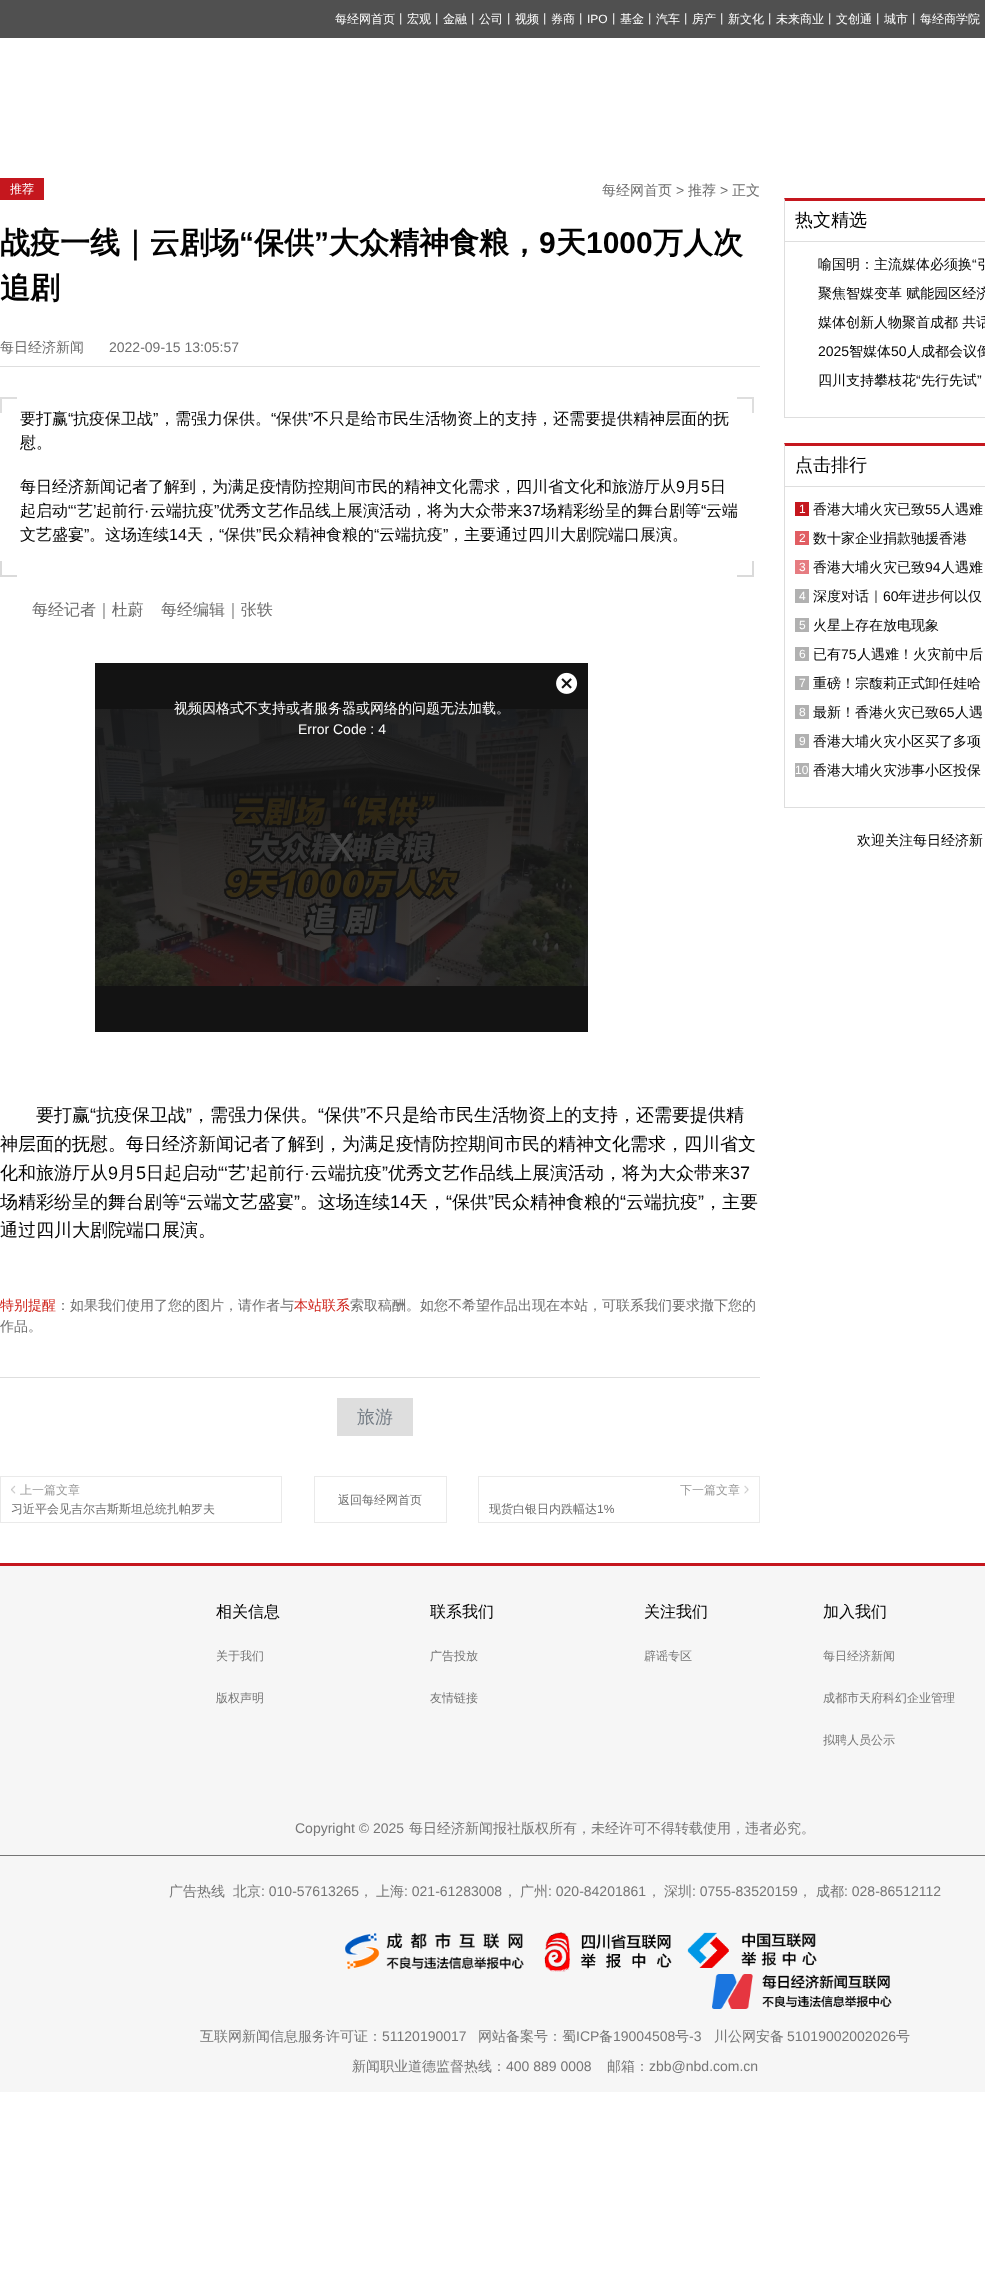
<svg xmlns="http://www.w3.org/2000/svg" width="985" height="2281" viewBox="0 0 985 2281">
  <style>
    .t1 { font: 500 12px WenQuanYi Zen Hei; fill: #fff; }
    .t2 { font: 12px Liberation Sans; fill: #fff; }
    .t3 { font: 500 14px WenQuanYi Zen Hei; fill: #6d6d6d; }
    .t4 { font: 14px Liberation Sans; fill: #6d6d6d; }
    .t5 { font: bold 30px WenQuanYi Zen Hei; fill: #020202; }
    .t6 { font: bold 30px Liberation Sans; fill: #020202; }
    .t7 { font: 500 16px WenQuanYi Zen Hei; fill: #020202; }
    .t8 { font: 16px Liberation Sans; fill: #020202; }
    .t9 { font: 500 16px WenQuanYi Zen Hei; fill: #6d6d6d; }
    .t10 { font: 500 14px WenQuanYi Zen Hei; fill: #fff; }
    .t11 { font: 14px Liberation Sans; fill: #fff; }
    .t12 { font: 40px Liberation Sans; fill: #464646; }
    .t13 { font: 500 18px WenQuanYi Zen Hei; fill: #020202; }
    .t14 { font: 18px Liberation Sans; fill: #020202; }
    .t15 { font: 500 14px WenQuanYi Zen Hei; fill: #cf2118; }
    .t16 { font: 500 18px WenQuanYi Zen Hei; fill: #747c85; }
    .t17 { font: 500 12px WenQuanYi Zen Hei; fill: #999; }
    .t18 { font: 500 12px WenQuanYi Zen Hei; fill: #6d6d6d; }
    .t19 { font: 12px Liberation Sans; fill: #6d6d6d; }
    .t20 { font: 500 14px WenQuanYi Zen Hei; fill: #020202; }
    .t21 { font: 14px Liberation Sans; fill: #020202; }
    .t22 { font: 500 12px WenQuanYi Zen Hei; fill: #757575; }
    .t23 { font: 14px Liberation Sans; fill: #757575; }
    .t24 { font: 500 14px WenQuanYi Zen Hei; fill: #757575; }
  </style>
  <defs>
    <linearGradient id="g1" gradientUnits="userSpaceOnUse" x1="342" y1="663" x2="342" y2="1032"><stop offset="0" stop-color="#131313" stop-opacity="0.8"/><stop offset="1" stop-color="#131313" stop-opacity="0"/></linearGradient>
    <clipPath id="clip1"><rect x="813" y="589" width="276" height="14"/></clipPath>
    <clipPath id="clip2"><rect x="216" y="1604" width="64" height="130"/></clipPath>
    <clipPath id="clip3"><rect x="644" y="1604" width="64" height="88"/></clipPath>
    <clipPath id="clip4"><rect x="823" y="1604" width="132" height="172"/></clipPath>
  </defs>
  <rect width="100%" height="100%" fill="#fff"/>
  <rect x="0" y="0" width="985" height="38" fill="#505050"/>
  <text x="335" y="23" class="t1">每经网首页丨宏观丨金融丨公司丨视频丨券商丨</text>
  <text x="587" y="23" class="t2">IPO</text>
  <text x="608" y="23" class="t1">丨基金丨汽车丨房产丨新文化丨未来商业丨文创通丨城市丨每经商学院</text>
  <rect x="0" y="178" width="44" height="22" fill="#c5171e"/>
  <text x="10" y="193" class="t1">推荐</text>
  <text x="602" y="195" class="t3">每经网首页</text>
  <text x="676" y="195" class="t4">&gt;</text>
  <text x="688" y="195" class="t3">推荐</text>
  <text x="720" y="195" class="t4">&gt;</text>
  <text x="732" y="195" class="t3">正文</text>
  <rect x="0" y="366" width="760" height="1" fill="#dedede"/>
  <text x="0" y="253" class="t5">战疫一线｜云剧场</text>
  <text x="239" y="253" class="t6">“</text>
  <text x="254" y="253" class="t5">保供</text>
  <text x="314" y="253" class="t6">”</text>
  <text x="329" y="253" class="t5">大众精神食粮，</text>
  <text x="539" y="253" class="t6">9</text>
  <text x="556" y="253" class="t5">天</text>
  <text x="586" y="253" class="t6">1000</text>
  <text x="653" y="253" class="t5">万人次</text>
  <text x="0" y="298" class="t5">追剧</text>
  <text x="0" y="352" class="t3">每日经济新闻</text>
  <text x="109" y="352" class="t4">2022-09-15 13:05:57</text>
  <text x="20" y="424" class="t7">要打赢</text>
  <text x="73" y="424" class="t7">抗疫保卫战</text>
  <text x="159" y="424" class="t7">，需强力保供。</text>
  <text x="276" y="424" class="t7">保供</text>
  <text x="313" y="424" class="t7">不只是给市民生活物资上的支持，还需要提供精神层面的抚</text>
  <image x="0" y="397" width="754" height="16" href="images/1.png"/>
  <text x="68" y="424" class="t8">“</text>
  <text x="153" y="424" class="t8">”</text>
  <text x="271" y="424" class="t8">“</text>
  <text x="308" y="424" class="t8">”</text>
  <text x="20" y="448" class="t7">慰。</text>
  <text x="20" y="492" class="t7">每日经济新闻记者了解到，为满足疫情防控期间市民的精神文化需求，四川省文化和旅游厅从</text>
  <text x="676" y="492" class="t8">9</text>
  <text x="685" y="492" class="t7">月</text>
  <text x="701" y="492" class="t8">5</text>
  <text x="710" y="492" class="t7">日</text>
  <text x="20" y="516" class="t7">起启动</text>
  <text x="68" y="516" class="t8">“‘</text>
  <text x="77" y="516" class="t7">艺</text>
  <text x="93" y="516" class="t8">’</text>
  <text x="96" y="516" class="t7">起前行</text>
  <text x="150" y="516" class="t7">云端抗疫</text>
  <text x="214" y="516" class="t8">”</text>
  <text x="219" y="516" class="t7">优秀文艺作品线上展演活动，将为大众带来</text>
  <text x="523" y="516" class="t8">37</text>
  <text x="541" y="516" class="t7">场精彩纷呈的舞台剧等</text>
  <text x="701" y="516" class="t8">“</text>
  <text x="706" y="516" class="t7">云端</text>
  <text x="144" y="516" class="t8">·</text>
  <text x="20" y="540" class="t7">文艺盛宴</text>
  <text x="84" y="540" class="t8">”</text>
  <text x="89" y="540" class="t7">。这场连续</text>
  <text x="169" y="540" class="t8">14</text>
  <text x="187" y="540" class="t7">天，</text>
  <text x="219" y="540" class="t8">“</text>
  <text x="224" y="540" class="t7">保供</text>
  <text x="256" y="540" class="t8">”</text>
  <text x="262" y="540" class="t7">民众精神食粮的</text>
  <text x="374" y="540" class="t8">“</text>
  <text x="379" y="540" class="t7">云端抗疫</text>
  <text x="443" y="540" class="t8">”</text>
  <text x="448" y="540" class="t7">，主要通过四川大剧院端口展演。</text>
  <image x="0" y="561" width="754" height="16" href="images/2.png"/>
  <text x="32" y="615" class="t9">每经记者｜杜蔚</text>
  <text x="161" y="615" class="t9">每经编辑｜张轶</text>
  <rect x="95" y="663" width="493" height="369" fill="#131313"/>
  <image x="95" y="709" width="493" height="277" href="images/4.png"/>
  <rect x="95" y="709" width="493" height="277" fill="url(#g1)"/>
  <image x="556" y="672" width="22" height="22" href="images/3.png"/>
  <text x="174" y="713" class="t10">视频因格式不支持或者服务器或网络的问题无法加载。</text>
  <text x="298" y="734" class="t11">Error Code : 4</text>
  <text x="328" y="861" class="t12">X</text>
  <text x="36" y="1121" class="t13">要打赢</text>
  <text x="90" y="1121" class="t14">“</text>
  <text x="96" y="1121" class="t13">抗疫保卫战</text>
  <text x="186" y="1121" class="t14">”</text>
  <text x="192" y="1121" class="t13">，需强力保供。</text>
  <text x="318" y="1121" class="t14">“</text>
  <text x="324" y="1121" class="t13">保供</text>
  <text x="360" y="1121" class="t14">”</text>
  <text x="366" y="1121" class="t13">不只是给市民生活物资上的支持，还需要提供精</text>
  <text x="0" y="1150" class="t13">神层面的抚慰。每日经济新闻记者了解到，为满足疫情防控期间市民的精神文化需求，四川省文</text>
  <text x="0" y="1179" class="t13">化和旅游厅从</text>
  <text x="108" y="1179" class="t14">9</text>
  <text x="118" y="1179" class="t13">月</text>
  <text x="136" y="1179" class="t14">5</text>
  <text x="146" y="1179" class="t13">日起启动</text>
  <text x="218" y="1179" class="t14">“‘</text>
  <text x="228" y="1179" class="t13">艺</text>
  <text x="246" y="1179" class="t14">’</text>
  <text x="250" y="1179" class="t13">起前行</text>
  <text x="304" y="1179" class="t14">·</text>
  <text x="310" y="1179" class="t13">云端抗疫</text>
  <text x="382" y="1179" class="t14">”</text>
  <text x="388" y="1179" class="t13">优秀文艺作品线上展演活动，将为大众带来</text>
  <text x="730" y="1179" class="t14">37</text>
  <text x="0" y="1208" class="t13">场精彩纷呈的舞台剧等</text>
  <text x="180" y="1208" class="t14">“</text>
  <text x="186" y="1208" class="t13">云端文艺盛宴</text>
  <text x="294" y="1208" class="t14">”</text>
  <text x="300" y="1208" class="t13">。这场连续</text>
  <text x="390" y="1208" class="t14">14</text>
  <text x="410" y="1208" class="t13">天，</text>
  <text x="446" y="1208" class="t14">“</text>
  <text x="452" y="1208" class="t13">保供</text>
  <text x="488" y="1208" class="t14">”</text>
  <text x="494" y="1208" class="t13">民众精神食粮的</text>
  <text x="620" y="1208" class="t14">“</text>
  <text x="626" y="1208" class="t13">云端抗疫</text>
  <text x="698" y="1208" class="t14">”</text>
  <text x="704" y="1208" class="t13">，主要</text>
  <text x="0" y="1236" class="t13">通过四川大剧院端口展演。</text>
  <text x="0" y="1310" class="t15">特别提醒</text>
  <text x="56" y="1310" class="t3">：如果我们使用了您的图片，请作者与</text>
  <text x="294" y="1310" class="t15">本站联系</text>
  <text x="350" y="1310" class="t3">索取稿酬。如您不希望作品出现在本站，可联系我们要求撤下您的</text>
  <text x="0" y="1331" class="t3">作品。</text>
  <rect x="0" y="1377" width="760" height="1" fill="#dedede"/>
  <rect x="337" y="1398" width="76" height="38" fill="#dedede"/>
  <text x="357" y="1423" class="t16">旅游</text>
  <rect x="0.5" y="1476.5" width="281" height="46" fill="none" stroke="#eaeaea"/>
  <image x="11" y="1485" width="5" height="9" href="images/5.png"/>
  <text x="20" y="1494" class="t17">上一篇文章</text>
  <text x="11" y="1513" class="t18">习近平会见吉尔吉斯斯坦总统扎帕罗夫</text>
  <rect x="314.5" y="1476.5" width="132" height="46" fill="none" stroke="#eaeaea"/>
  <text x="338" y="1504" class="t18">返回每经网首页</text>
  <rect x="478.5" y="1476.5" width="281" height="46" fill="none" stroke="#eaeaea"/>
  <text x="680" y="1494" class="t17">下一篇文章</text>
  <image x="744" y="1485" width="5" height="9" href="images/6.png"/>
  <text x="489" y="1513" class="t18">现货白银日内跌幅达</text>
  <text x="597" y="1513" class="t19">1%</text>
  <path d="M784 198H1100L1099 201H785Z" fill="#c5171e"/>
  <rect x="784" y="417" width="201" height="1" fill="#dedede"/>
  <path d="M784 418V198L785 201V417Z" fill="#dedede"/>
  <rect x="785" y="241" width="200" height="1" fill="#dedede"/>
  <text x="795" y="226" class="t13">热文精选</text>
  <text x="818" y="269" class="t20">喻国明：主流媒体必须换</text>
  <text x="972" y="269" class="t21">“</text>
  <text x="977" y="269" class="t20">引</text>
  <text x="818" y="298" class="t20">聚焦智媒变革 赋能园区经济</text>
  <text x="818" y="327" class="t20">媒体创新人物聚首成都 共话</text>
  <text x="818" y="356" class="t21">2025</text>
  <text x="849" y="356" class="t20">智媒体</text>
  <text x="891" y="356" class="t21">50</text>
  <text x="907" y="356" class="t20">人成都会议倒</text>
  <text x="818" y="385" class="t20">四川支持攀枝花</text>
  <text x="916" y="385" class="t21">“</text>
  <text x="921" y="385" class="t20">先行先试</text>
  <text x="977" y="385" class="t21">”</text>
  <path d="M784 443H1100L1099 446H785Z" fill="#c5171e"/>
  <rect x="784" y="807" width="201" height="1" fill="#dedede"/>
  <path d="M784 808V443L785 446V807Z" fill="#dedede"/>
  <rect x="785" y="486" width="200" height="1" fill="#dedede"/>
  <text x="795" y="471" class="t13">点击排行</text>
  <rect x="795" y="502" width="14" height="14" fill="#c5171e"/>
  <text x="799" y="513" class="t2">1</text>
  <text x="813" y="514" class="t20">香港大埔火灾已致</text>
  <text x="925" y="514" class="t21">55</text>
  <text x="941" y="514" class="t20">人遇难</text>
  <rect x="795" y="531" width="14" height="14" fill="#e15e63"/>
  <text x="799" y="542" class="t2">2</text>
  <text x="813" y="543" class="t20">数十家企业捐款驰援香港</text>
  <rect x="795" y="560" width="14" height="14" fill="#e67c81"/>
  <text x="799" y="571" class="t2">3</text>
  <text x="813" y="572" class="t20">香港大埔火灾已致</text>
  <text x="925" y="572" class="t21">94</text>
  <text x="941" y="572" class="t20">人遇难</text>
  <rect x="795" y="589" width="14" height="14" fill="#b1b1b1"/>
  <text x="799" y="600" class="t2">4</text>
  <g clip-path="url(#clip1)">
    <text x="813" y="601" class="t20">深度对话｜</text>
  </g>
  <text x="883" y="601" class="t21">60</text>
  <text x="898" y="601" class="t20">年进步何以仅</text>
  <rect x="795" y="618" width="14" height="14" fill="#b1b1b1"/>
  <text x="799" y="629" class="t2">5</text>
  <text x="813" y="630" class="t20">火星上存在放电现象</text>
  <rect x="795" y="647" width="14" height="14" fill="#b1b1b1"/>
  <text x="799" y="658" class="t2">6</text>
  <text x="813" y="659" class="t20">已有</text>
  <text x="841" y="659" class="t21">75</text>
  <text x="857" y="659" class="t20">人遇难！火灾前中后</text>
  <rect x="795" y="676" width="14" height="14" fill="#b1b1b1"/>
  <text x="799" y="687" class="t2">7</text>
  <text x="813" y="688" class="t20">重磅！宗馥莉正式卸任娃哈</text>
  <rect x="795" y="705" width="14" height="14" fill="#b1b1b1"/>
  <text x="799" y="716" class="t2">8</text>
  <text x="813" y="717" class="t20">最新！香港火灾已致</text>
  <text x="939" y="717" class="t21">65</text>
  <text x="955" y="717" class="t20">人遇</text>
  <rect x="795" y="734" width="14" height="14" fill="#b1b1b1"/>
  <text x="799" y="745" class="t2">9</text>
  <text x="813" y="746" class="t20">香港大埔火灾小区买了多项</text>
  <rect x="795" y="763" width="14" height="14" fill="#b1b1b1"/>
  <text x="795" y="774" class="t2">10</text>
  <text x="813" y="775" class="t20">香港大埔火灾涉事小区投保</text>
  <text x="857" y="845" class="t20">欢迎关注每日经济新</text>
  <rect x="0" y="1566" width="985" height="526" fill="#f6f6f6"/>
  <rect x="0" y="1563" width="985" height="3" fill="#c5171e"/>
  <g clip-path="url(#clip2)">
    <text x="216" y="1617" class="t7">相关信息</text>
  </g>
  <text x="216" y="1660" class="t22">关于我们</text>
  <text x="216" y="1702" class="t22">版权声明</text>
  <text x="430" y="1617" class="t7">联系我们</text>
  <text x="430" y="1660" class="t22">广告投放</text>
  <text x="430" y="1702" class="t22">友情链接</text>
  <g clip-path="url(#clip3)">
    <text x="644" y="1617" class="t7">关注我们</text>
  </g>
  <text x="644" y="1660" class="t22">辟谣专区</text>
  <g clip-path="url(#clip4)">
    <text x="823" y="1617" class="t7">加入我们</text>
  </g>
  <text x="823" y="1660" class="t22">每日经济新闻</text>
  <text x="823" y="1702" class="t22">成都市天府科幻企业管理</text>
  <text x="823" y="1744" class="t22">拟聘人员公示</text>
  <rect x="0" y="1855" width="985" height="1" fill="#757575"/>
  <text x="295" y="1833" class="t23">Copyright © 2025</text>
  <text x="409" y="1833" class="t24">每日经济新闻报社版权所有，未经许可不得转载使用，违者必究。</text>
  <text x="169" y="1896" class="t24">广告热线</text>
  <text x="233" y="1896" class="t24">北京</text>
  <text x="261" y="1896" class="t23">: 010-57613265</text>
  <text x="359" y="1896" class="t24">，</text>
  <text x="376" y="1896" class="t24">上海</text>
  <text x="404" y="1896" class="t23">: 021-61283008</text>
  <text x="503" y="1896" class="t24">，</text>
  <text x="520" y="1896" class="t24">广州</text>
  <text x="548" y="1896" class="t23">: 020-84201861</text>
  <text x="647" y="1896" class="t24">，</text>
  <text x="664" y="1896" class="t24">深圳</text>
  <text x="692" y="1896" class="t23">: 0755-83520159</text>
  <text x="798" y="1896" class="t24">，</text>
  <text x="816" y="1896" class="t24">成都</text>
  <text x="844" y="1896" class="t23">: 028-86512112</text>
  <image x="344" y="1932" width="180" height="38" href="images/7.png"/>
  <image x="544" y="1932" width="128" height="40" href="images/8.png"/>
  <image x="687" y="1932" width="130" height="36" href="images/9.png"/>
  <image x="712" y="1974" width="180" height="35" href="images/10.png"/>
  <text x="200" y="2041" class="t24">互联网新闻信息服务许可证：</text>
  <text x="382" y="2041" class="t23">51120190017</text>
  <text x="478" y="2041" class="t24">网站备案号：蜀</text>
  <text x="576" y="2041" class="t23">ICP</text>
  <text x="599" y="2041" class="t24">备</text>
  <text x="613" y="2041" class="t23">19004508</text>
  <text x="675" y="2041" class="t24">号</text>
  <text x="689" y="2041" class="t23">-3</text>
  <text x="714" y="2041" class="t24">川公网安备</text>
  <text x="787" y="2041" class="t23">51019002002026</text>
  <text x="896" y="2041" class="t24">号</text>
  <text x="352" y="2071" class="t24">新闻职业道德监督热线：</text>
  <text x="506" y="2071" class="t23">400 889 0008</text>
  <text x="607" y="2071" class="t24">邮箱：</text>
  <text x="649" y="2071" class="t23">zbb@nbd.com.cn</text>
</svg>
